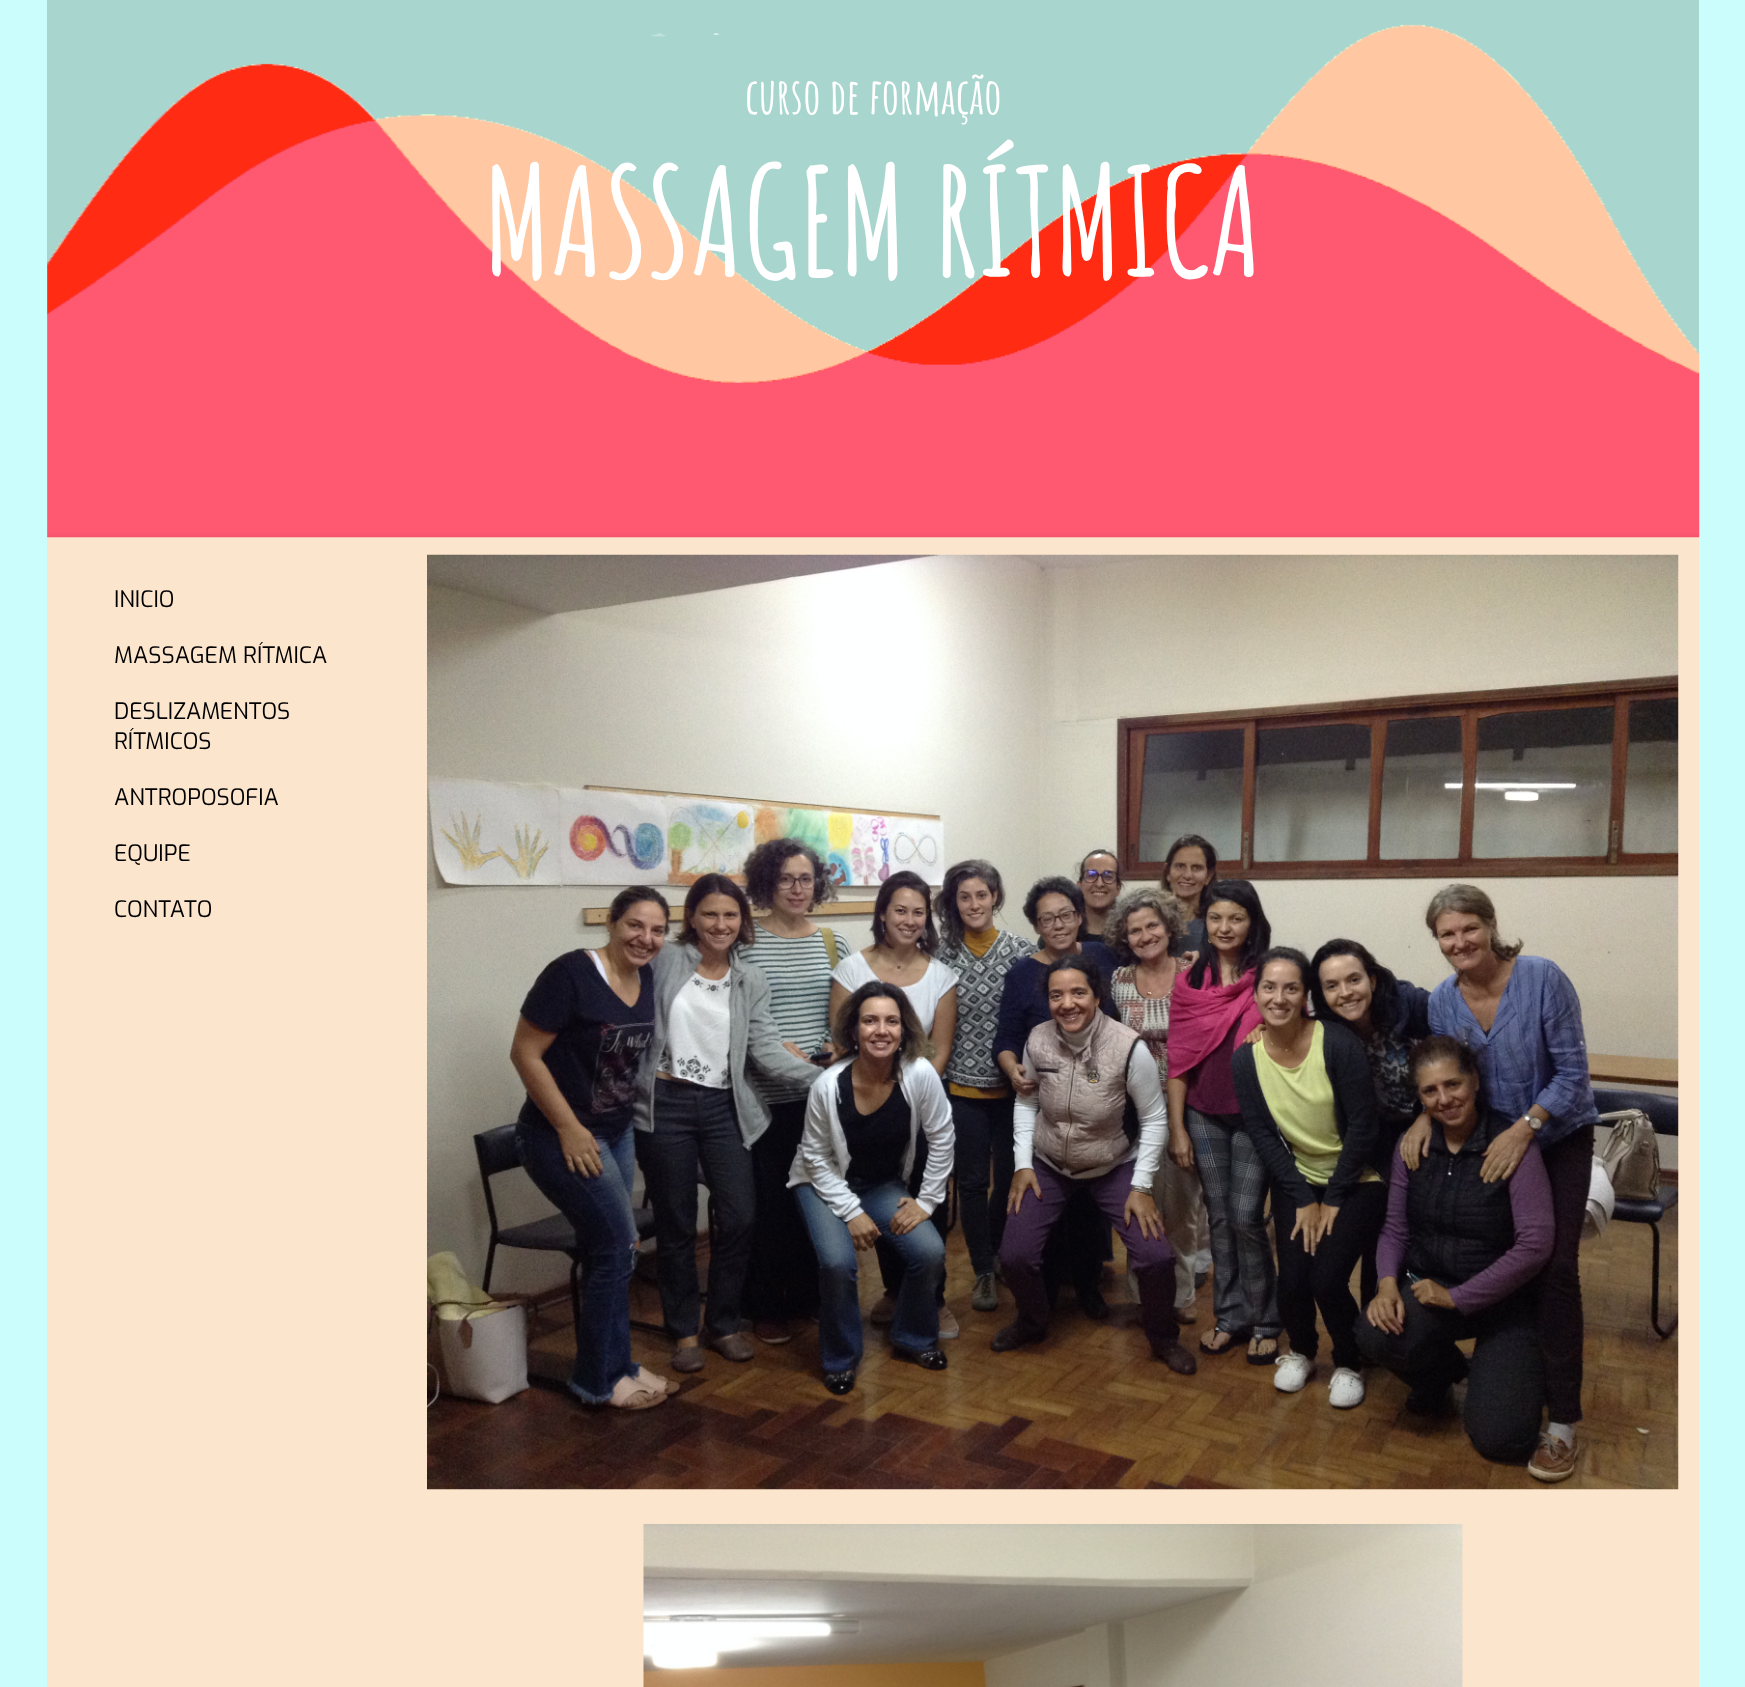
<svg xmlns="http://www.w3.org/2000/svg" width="1745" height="1687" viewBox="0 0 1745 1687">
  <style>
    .t1 { font: bold 49px Amatic SC; fill: #fff; }
    .t2 { font: bold 148.75px Amatic SC; fill: #fff; }
    .t3 { font: 22.75px Exo; fill: #000; }
  </style>
  <rect width="100%" height="100%" fill="#cbfdfd"/>
  <rect x="47" y="0" width="1652" height="537" fill="#a8d6ce"/>
  <rect x="47" y="537" width="1652" height="1150" fill="#fce5cd"/>
  <image x="47" y="24" width="1653" height="514" href="images/1.png"/>
  <text x="745" y="114" class="t1">curso de formação</text>
  <text x="484" y="277" class="t2">MASSAGEM RÍTMICA</text>
  <image x="427" y="554" width="1252" height="936" href="images/2.png"/>
  <image x="643" y="1524" width="820" height="163" href="images/3.png"/>
  <text x="114" y="607" class="t3">INICIO</text>
  <text x="114" y="663" class="t3">MASSAGEM RÍTMICA</text>
  <text x="114" y="719" class="t3">DESLIZAMENTOS</text>
  <text x="114" y="749" class="t3">RÍTMICOS</text>
  <text x="114" y="805" class="t3">ANTROPOSOFIA</text>
  <text x="114" y="861" class="t3">EQUIPE</text>
  <text x="114" y="917" class="t3">CONTATO</text>
</svg>
